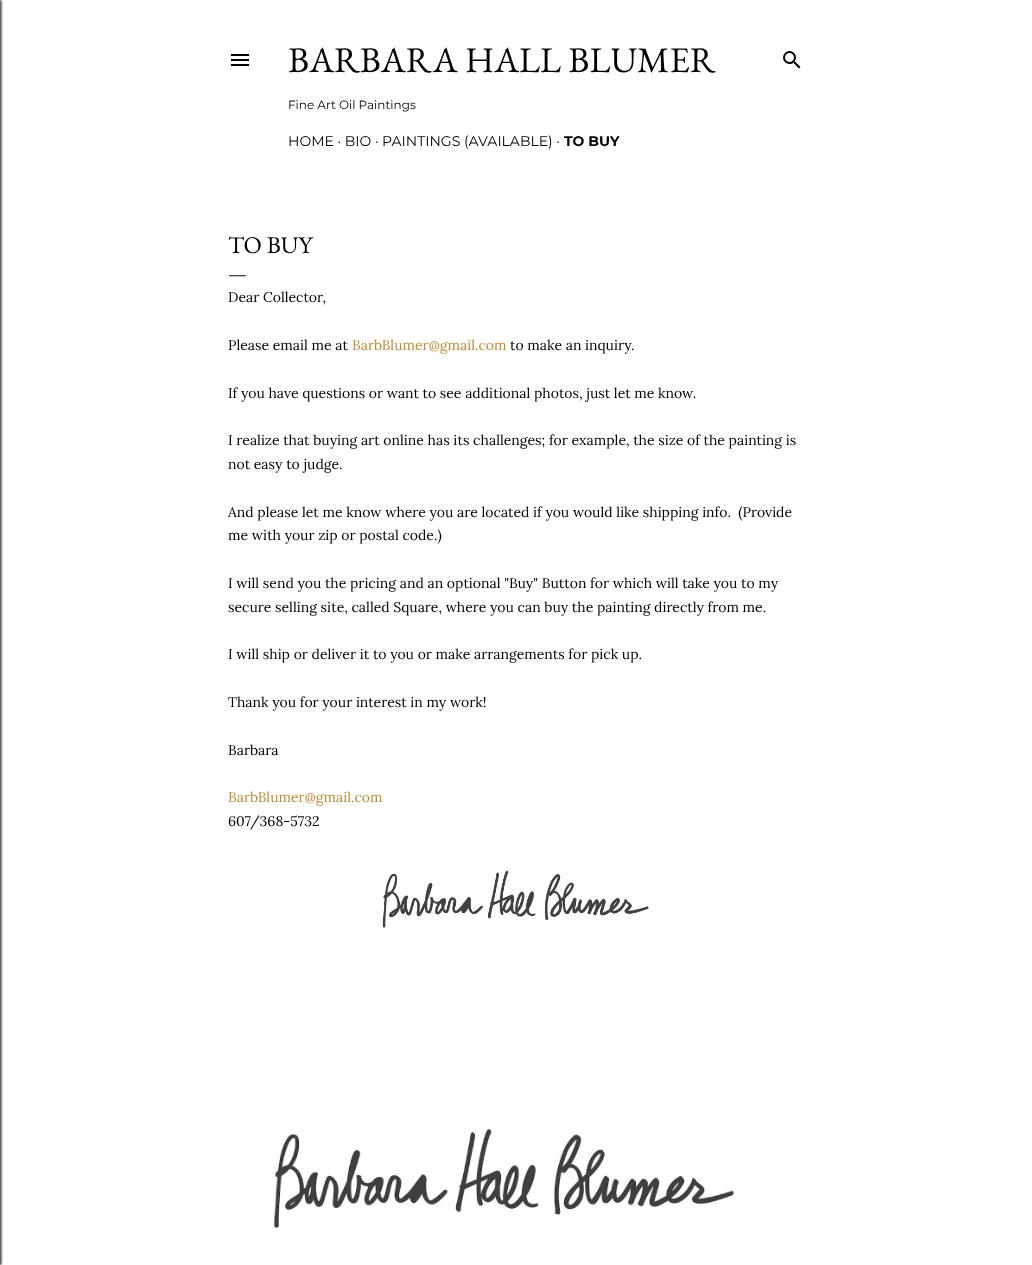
<svg xmlns="http://www.w3.org/2000/svg" width="1032" height="1265" viewBox="0 0 1032 1265">
  <style>
    .t1 { font: 36px EB Garamond; fill: #000; }
    .t2 { font: 12px Montserrat; fill: #000; }
    .t3 { font: 14px Montserrat; fill: #000; }
    .t4 { font: bold 14px Montserrat; fill: #000; }
    .t5 { font: 24px EB Garamond; fill: #000; }
    .t6 { font: 20px EB Garamond; fill: #000; }
    .t7 { font: 14px Lora; fill: #000; }
    .t8 { font: 14px Lora; fill: #bf8b38; }
  </style>
  <rect width="100%" height="100%" fill="#fff"/>
  <rect x="-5" y="0" width="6" height="1265" fill="#000" filter="blur(1.5px)"/>
  <image x="231" y="54" width="18" height="12" href="images/1.png"/>
  <text x="288" y="72" class="t1">BARBARA HALL BLUMER</text>
  <text x="288" y="109" class="t2">Fine Art Oil Paintings</text>
  <text x="288" y="146" class="t3">HOME · BIO · PAINTINGS (AVAILABLE) ·</text>
  <text x="564" y="146" class="t4">TO BUY</text>
  <image x="783" y="51" width="18" height="18" href="images/2.png"/>
  <text x="228" y="253" class="t5">TO BUY</text>
  <text x="228" y="280" class="t6">—</text>
  <text x="228" y="302" class="t7">Dear Collector,</text>
  <text x="228" y="350" class="t7">Please email me at</text>
  <text x="352" y="350" class="t8">BarbBlumer@gmail.com</text>
  <text x="510" y="350" class="t7">to make an inquiry.</text>
  <text x="228" y="398" class="t7">If you have questions or want to see additional photos, just let me know.</text>
  <text x="228" y="445" class="t7">I realize that buying art online has its challenges; for example, the size of the painting is</text>
  <text x="228" y="469" class="t7">not easy to judge.</text>
  <text x="228" y="517" class="t7" xml:space="preserve">And please let me know where you are located if you would like shipping info.  (Provide</text>
  <text x="228" y="540" class="t7">me with your zip or postal code.)</text>
  <text x="228" y="588" class="t7">I will send you the pricing and an optional "Buy" Button for which will take you to my</text>
  <text x="228" y="612" class="t7">secure selling site, called Square, where you can buy the painting directly from me.</text>
  <text x="228" y="659" class="t7">I will ship or deliver it to you or make arrangements for pick up.</text>
  <text x="228" y="707" class="t7">Thank you for your interest in my work!</text>
  <text x="228" y="755" class="t7">Barbara</text>
  <text x="228" y="802" class="t8">BarbBlumer@gmail.com</text>
  <text x="228" y="826" class="t7">607/368-5732</text>
  <image x="382" y="870" width="267" height="58" href="images/3.png"/>
  <image x="273" y="1128" width="462" height="100" href="images/4.png"/>
</svg>
